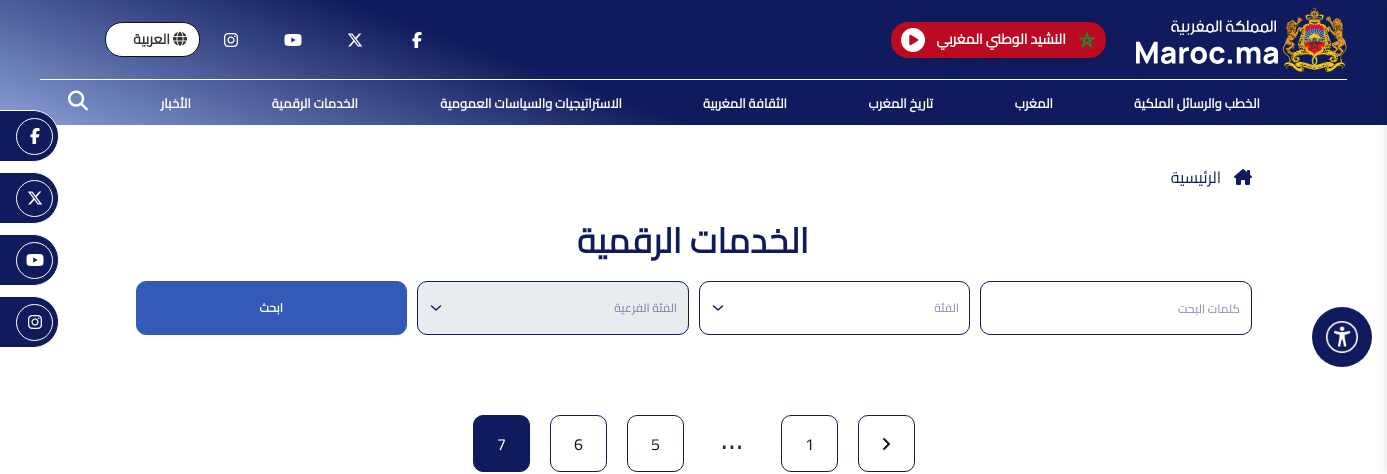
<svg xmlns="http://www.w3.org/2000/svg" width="1387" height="474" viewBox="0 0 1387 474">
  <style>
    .t1 { font: bold 14px Cairo; direction: rtl; fill: #fff; }
    .t2 { font: bold 14px Cairo; direction: rtl; fill: #333; }
    .t3 { font: bold 13px Cairo; direction: rtl; fill: #fff; }
    .t4 { font: 16px Cairo; direction: rtl; fill: #0f1b5c; }
    .t5 { font: bold 35px Cairo; direction: rtl; fill: #0f1b5c; }
    .t6 { font: 12px Cairo; direction: rtl; fill: #878dae; }
    .t7 { font: 12px Cairo; direction: rtl; fill: #7c84a6; }
    .t8 { font: bold 12px Cairo; direction: rtl; fill: #fff; }
    .t9 { font: 16px Cairo; fill: #111; }
    .t10 { font: 30px Cairo; fill: #212529; }
    .t11 { font: 16px Cairo; fill: #fff; }
  </style>
  <defs>
    <linearGradient id="g1" gradientUnits="userSpaceOnUse" x1="795" y1="-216" x2="592" y2="341"><stop offset="0.6" stop-color="#0f1b5c"/><stop offset="1" stop-color="#89a0d6"/></linearGradient>
  </defs>
  <rect width="100%" height="100%" fill="#fff"/>
  <rect x="0" y="0" width="1387" height="125" fill="url(#g1)"/>
  <circle cx="1342" cy="337" r="30" fill="#0f1b5c"/>
  <rect x="1387" y="0" width="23" height="474" fill="#0000001a" filter="blur(7.5px)"/>
  <rect x="40" y="79" width="1307" height="1" fill="#fff"/>
  <image x="1136" y="7" width="211" height="65" href="images/1.png"/>
  <rect x="891" y="22" width="215" height="36" rx="17" fill="#bb0a21"/>
  <image x="1078" y="31" width="18" height="17" href="images/2.png"/>
  <text x="1066" y="44" class="t1">النشيد الوطني المغربي</text>
  <image x="901" y="28" width="24" height="24" href="images/3.png"/>
  <image x="412" y="32" width="10" height="16" href="images/4.png"/>
  <image x="348" y="33" width="15" height="14" href="images/5.png"/>
  <image x="284" y="34" width="18" height="12" href="images/6.png"/>
  <image x="224" y="33" width="14" height="14" href="images/7.png"/>
  <rect x="105.5" y="22.5" width="94" height="34" rx="16.5" fill="#fff" stroke="#111"/>
  <image x="173" y="31" width="14" height="15" href="images/8.png"/>
  <text x="170" y="44" class="t2">العربية</text>
  <text x="1260" y="108" class="t3">الخطب والرسائل الملكية</text>
  <text x="1053" y="108" class="t3">المغرب</text>
  <text x="933" y="108" class="t3">تاريخ المغرب</text>
  <text x="787" y="108" class="t3">الثقافة المغربية</text>
  <text x="622" y="108" class="t3">الاستراتيجيات والسياسات العمومية</text>
  <text x="358" y="108" class="t3">الخدمات الرقمية</text>
  <text x="191" y="108" class="t3">الأخبار</text>
  <image x="68" y="90" width="20" height="21" href="images/9.png"/>
  <image x="1326" y="321" width="32" height="32" href="images/10.png"/>
  <image x="1234" y="169" width="18" height="16" href="images/11.png"/>
  <text x="1221" y="183" class="t4">الرئيسية</text>
  <text x="809" y="253" class="t5">الخدمات الرقمية</text>
  <rect x="980.5" y="281.5" width="271" height="53" rx="9.5" fill="none" stroke="#0f1b5c"/>
  <text x="1240" y="313" class="t6">كلمات البحت</text>
  <path d="M713.5 306L718 310L722.5 306" fill="none" stroke="#0f1b5c" stroke-width="1.5" stroke-linecap="round" stroke-linejoin="round"/>
  <rect x="699.5" y="281.5" width="270" height="53" rx="9.5" fill="none" stroke="#0f1b5c"/>
  <text x="959" y="312" class="t6">الفئة</text>
  <rect x="417" y="281" width="272" height="54" rx="10" fill="#e9ecef"/>
  <path d="M431.5 306L436 310L440.5 306" fill="none" stroke="#0f1b5c" stroke-width="1.5" stroke-linecap="round" stroke-linejoin="round"/>
  <rect x="417.5" y="281.5" width="271" height="53" rx="9.5" fill="none" stroke="#0f1b5c"/>
  <text x="677" y="312" class="t7">الفئة الفرعية</text>
  <rect x="136.5" y="281.5" width="270" height="53" rx="9.5" fill="#335ab7" stroke="#335ab7"/>
  <text x="283" y="312" class="t8">ابحث</text>
  <rect x="858.5" y="415.5" width="56" height="56" rx="9.5" fill="none" stroke="#0f1b5c"/>
  <image x="883" y="438" width="7" height="12" href="images/12.png"/>
  <rect x="781.5" y="415.5" width="56" height="56" rx="9.5" fill="none" stroke="#0f1b5c"/>
  <text x="805" y="450" class="t9">1</text>
  <text x="721" y="449" class="t10">…</text>
  <rect x="627.5" y="415.5" width="56" height="56" rx="9.5" fill="none" stroke="#0f1b5c"/>
  <text x="651" y="450" class="t9">5</text>
  <rect x="550.5" y="415.5" width="56" height="56" rx="9.5" fill="none" stroke="#0f1b5c"/>
  <text x="574" y="450" class="t9">6</text>
  <rect x="473.5" y="415.5" width="56" height="56" rx="9.5" fill="#0f1b5c" stroke="#0f1b5c"/>
  <text x="497" y="450" class="t11">7</text>
  <path d="M-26.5 110.5H33C47 110.5 58.5 122 58.5 136C58.5 150 47 161.5 33 161.5H-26.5Z" fill="#0f1b5c" stroke="#fff"/>
  <circle cx="34.5" cy="136.5" r="18" fill="none" stroke="#fff"/>
  <image x="30" y="128" width="10" height="16" href="images/13.png"/>
  <path d="M-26.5 172.5H33C47 172.5 58.5 184 58.5 198C58.5 212 47 223.5 33 223.5H-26.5Z" fill="#0f1b5c" stroke="#fff"/>
  <circle cx="34.5" cy="198.5" r="18" fill="none" stroke="#fff"/>
  <image x="28" y="191" width="15" height="14" href="images/14.png"/>
  <path d="M-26.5 234.5H33C47 234.5 58.5 246 58.5 260C58.5 274 47 285.5 33 285.5H-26.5Z" fill="#0f1b5c" stroke="#fff"/>
  <circle cx="34.5" cy="260.5" r="18" fill="none" stroke="#fff"/>
  <image x="26" y="254" width="18" height="12" href="images/15.png"/>
  <path d="M-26.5 296.5H33C47 296.5 58.5 308 58.5 322C58.5 336 47 347.5 33 347.5H-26.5Z" fill="#0f1b5c" stroke="#fff"/>
  <circle cx="34.5" cy="322.5" r="18" fill="none" stroke="#fff"/>
  <image x="28" y="315" width="14" height="14" href="images/16.png"/>
</svg>
